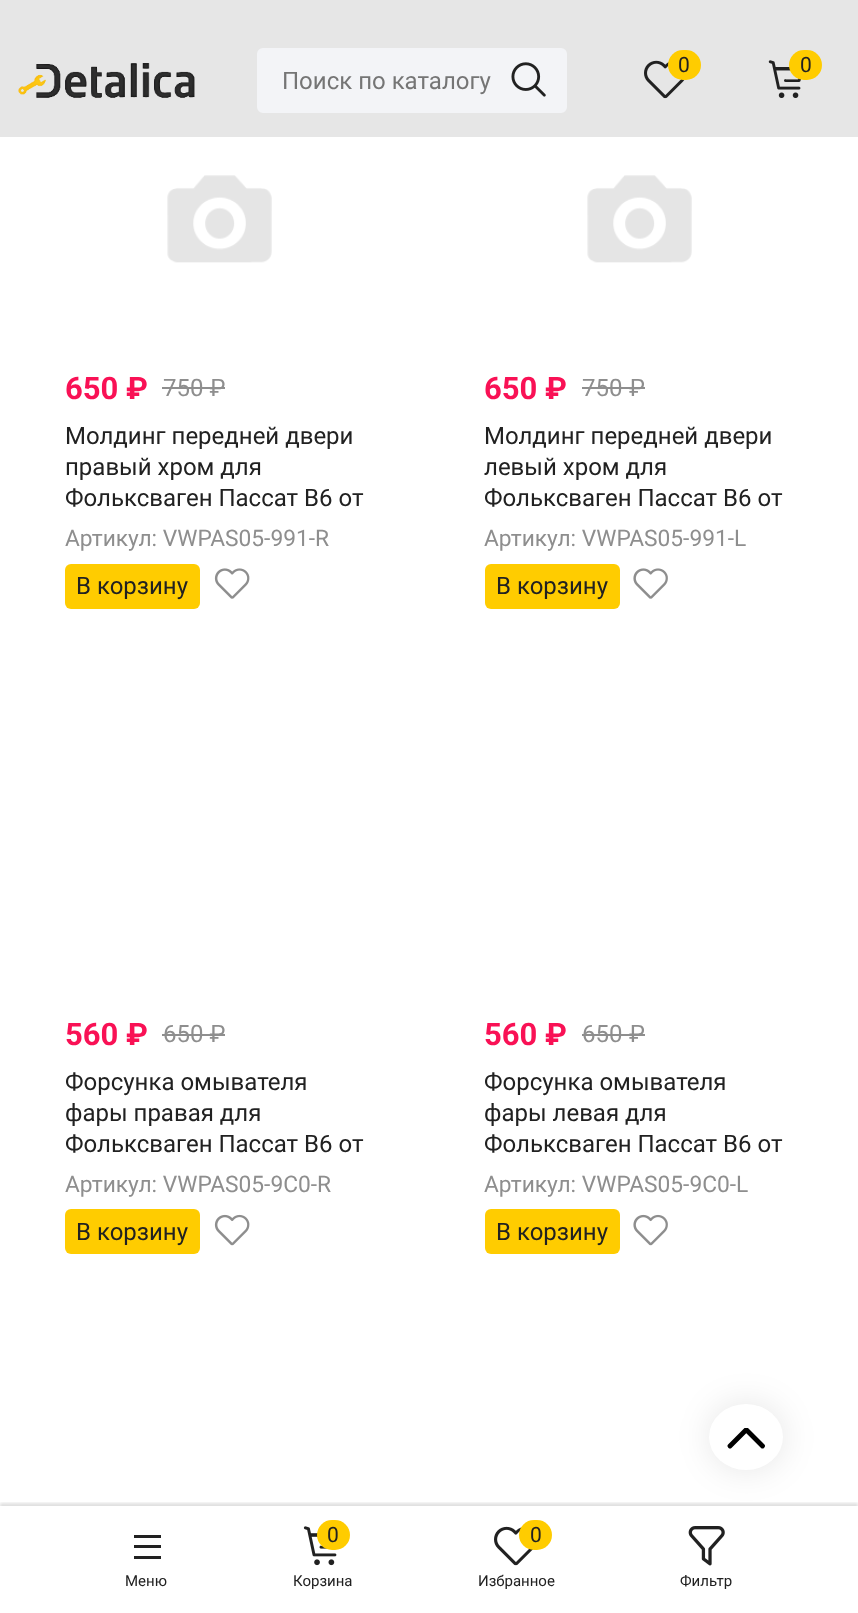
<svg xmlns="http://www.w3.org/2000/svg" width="858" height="1613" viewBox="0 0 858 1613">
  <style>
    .t1 { font: 21px Roboto; fill: #212121; }
    .t2 { font: 24px Roboto; fill: #757575; }
    .t3 { font: bold 31px Roboto; fill: #f91155; }
    .t4 { font: 24px Roboto; fill: #8e8e8e; }
    .t5 { font: 24px Roboto; fill: #212121; }
    .t6 { font: 22.75px Roboto; fill: #8e8e8e; }
    .t7 { font: 15px Roboto; fill: #212121; }
  </style>
  <defs>
    <clipPath id="clip1"><rect x="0" y="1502" width="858" height="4"/></clipPath>
  </defs>
  <rect width="100%" height="100%" fill="#fff"/>
  <rect x="0" y="0" width="858" height="137" fill="#e6e6e6"/>
  <image x="18" y="63" width="177" height="35" href="images/1.png"/>
  <image x="644" y="60" width="41" height="39" href="images/2.png"/>
  <rect x="668" y="50" width="33" height="30" rx="15" fill="#fc0"/>
  <text x="678" y="72" class="t1">0</text>
  <image x="768" y="60" width="34" height="38" href="images/3.png"/>
  <rect x="789" y="50" width="33" height="30" rx="15" fill="#fc0"/>
  <text x="800" y="72" class="t1">0</text>
  <rect x="258" y="49" width="308" height="63" rx="5" fill="#f3f4f7" stroke="#f3f4f7" stroke-width="2"/>
  <text x="282" y="89" class="t2">Поиск по каталогу</text>
  <image x="511" y="62" width="35" height="35" href="images/4.png"/>
  <image x="167" y="175" width="105" height="88" href="images/5.png"/>
  <text x="65" y="399" class="t3">650 ₽</text>
  <text x="163" y="396" class="t4">750 ₽</text>
  <rect x="162" y="387" width="63" height="2" fill="#8e8e8e"/>
  <text x="65" y="444" class="t5">Молдинг передней двери</text>
  <text x="65" y="475" class="t5">правый хром для</text>
  <text x="65" y="506" class="t5">Фольксваген Пассат В6 от</text>
  <text x="65" y="546" class="t6">Артикул: VWPAS05-991-R</text>
  <rect x="65" y="564" width="135" height="45" rx="6" fill="#fc0"/>
  <text x="76" y="594" class="t5">В корзину</text>
  <image x="214" y="568" width="36" height="31" href="images/6.png"/>
  <image x="587" y="175" width="105" height="88" href="images/5.png"/>
  <text x="484" y="399" class="t3">650 ₽</text>
  <text x="582" y="396" class="t4">750</text>
  <rect x="582" y="387" width="47" height="2" fill="#8e8e8e"/>
  <text x="629" y="396" class="t4">₽</text>
  <rect x="629" y="387" width="16" height="2" fill="#8e8e8e"/>
  <text x="484" y="444" class="t5">Молдинг передней двери</text>
  <text x="484" y="475" class="t5">левый хром для</text>
  <text x="484" y="506" class="t5">Фольксваген Пассат В6 от</text>
  <text x="484" y="546" class="t6">Артикул: VWPAS05-991-L</text>
  <rect x="485" y="564" width="135" height="45" rx="6" fill="#fc0"/>
  <text x="496" y="594" class="t5">В корзину</text>
  <image x="633" y="568" width="35" height="31" href="images/7.png"/>
  <text x="65" y="1045" class="t3">560 ₽</text>
  <text x="163" y="1042" class="t4">650 ₽</text>
  <rect x="162" y="1034" width="63" height="2" fill="#8e8e8e"/>
  <text x="65" y="1090" class="t5">Форсунка омывателя</text>
  <text x="65" y="1121" class="t5">фары правая для</text>
  <text x="65" y="1152" class="t5">Фольксваген Пассат В6 от</text>
  <text x="65" y="1192" class="t6">Артикул: VWPAS05-9C0-R</text>
  <rect x="65" y="1209" width="135" height="45" rx="6" fill="#fc0"/>
  <text x="76" y="1240" class="t5">В корзину</text>
  <image x="214" y="1214" width="36" height="32" href="images/8.png"/>
  <text x="484" y="1045" class="t3">560 ₽</text>
  <text x="582" y="1042" class="t4">650</text>
  <rect x="582" y="1034" width="47" height="2" fill="#8e8e8e"/>
  <text x="629" y="1042" class="t4">₽</text>
  <rect x="629" y="1034" width="16" height="2" fill="#8e8e8e"/>
  <text x="484" y="1090" class="t5">Форсунка омывателя</text>
  <text x="484" y="1121" class="t5">фары левая для</text>
  <text x="484" y="1152" class="t5">Фольксваген Пассат В6 от</text>
  <text x="484" y="1192" class="t6">Артикул: VWPAS05-9C0-L</text>
  <rect x="485" y="1209" width="135" height="45" rx="6" fill="#fc0"/>
  <text x="496" y="1240" class="t5">В корзину</text>
  <image x="633" y="1214" width="35" height="32" href="images/9.png"/>
  <rect x="710" y="1404" width="73" height="66" rx="33" fill="#0000001a" filter="blur(17px)"/>
  <ellipse cx="746" cy="1437" rx="37" ry="33" fill="#fff"/>
  <path d="M730 1446L745.5 1430.5C746 1430.5 746.5 1430.5 747 1430.5L762.5 1446" fill="none" stroke="#000" stroke-width="4.8" stroke-linecap="round"/>
  <g clip-path="url(#clip1)">
    <rect x="0" y="1503" width="858" height="108" fill="#0000001f" filter="blur(1.5px)"/>
  </g>
  <rect x="134" y="1535" width="27" height="3" fill="#212121"/>
  <rect x="134" y="1545" width="27" height="3" fill="#212121"/>
  <rect x="134" y="1556" width="27" height="3" fill="#212121"/>
  <text x="125" y="1586" class="t7">Меню</text>
  <image x="303" y="1526" width="34" height="40" href="images/10.png"/>
  <rect x="317" y="1520" width="33" height="30" rx="15" fill="#fc0"/>
  <text x="327" y="1542" class="t1">0</text>
  <text x="293" y="1586" class="t7">Корзина</text>
  <image x="494" y="1526" width="40" height="40" href="images/11.png"/>
  <rect x="519" y="1520" width="33" height="30" rx="15" fill="#fc0"/>
  <text x="530" y="1542" class="t1">0</text>
  <text x="478" y="1586" class="t7">Избранное</text>
  <image x="688" y="1526" width="37" height="40" href="images/12.png"/>
  <text x="680" y="1586" class="t7">Фильтр</text>
</svg>
